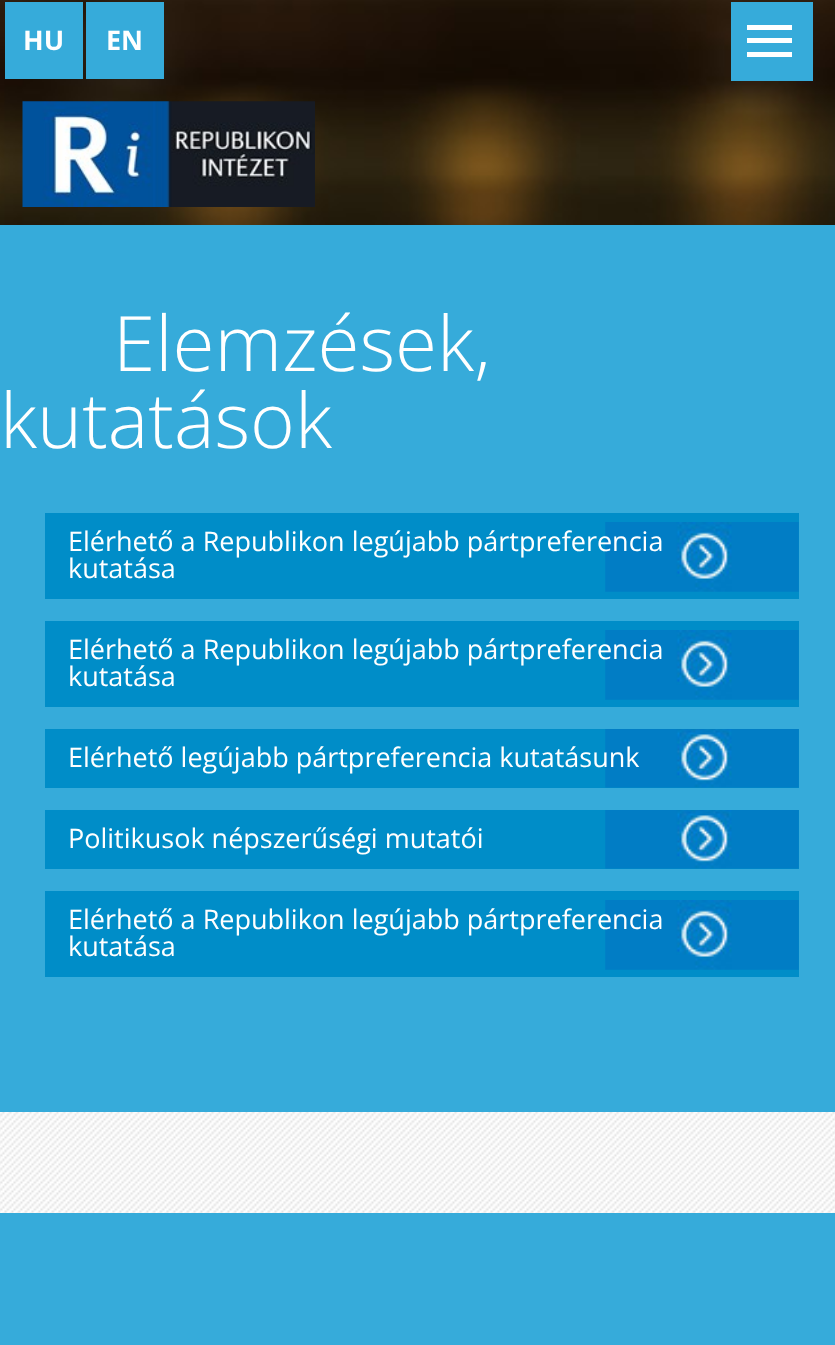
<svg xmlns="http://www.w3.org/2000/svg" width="835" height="1345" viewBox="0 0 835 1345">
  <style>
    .t1 { font: bold 27px Open Sans; fill: #fff; }
    .t2 { font: 300 76.5px Open Sans; fill: #fff; }
    .t3 { font: 27px Open Sans; fill: #fff; }
  </style>
  <rect width="100%" height="100%" fill="#fff"/>
  <image x="0" y="1112" width="835" height="101" href="images/1.png"/>
  <image x="0" y="0" width="835" height="225" href="images/2.png"/>
  <rect x="5" y="2" width="78" height="77" fill="#36abda"/>
  <text x="23" y="50" class="t1">HU</text>
  <rect x="86" y="2" width="78" height="77" fill="#36abda"/>
  <text x="106" y="50" class="t1">EN</text>
  <image x="22" y="101" width="293" height="106" href="images/3.png"/>
  <rect x="731" y="2" width="82" height="79" fill="#36abda"/>
  <rect x="747" y="25" width="45" height="5" fill="#fff"/>
  <rect x="747" y="38" width="45" height="5" fill="#fff"/>
  <rect x="747" y="52" width="45" height="5" fill="#fff"/>
  <rect x="0" y="225" width="835" height="887" fill="#36abda"/>
  <text x="113" y="371" class="t2">Elemzések,</text>
  <text x="0" y="448" class="t2">kutatások</text>
  <rect x="45" y="513" width="754" height="86" fill="#008dc8"/>
  <image x="605" y="522" width="194" height="70" href="images/4.png"/>
  <text x="68" y="551" class="t3">Elérhető a Republikon legújabb pártpreferencia</text>
  <text x="68" y="578" class="t3">kutatása</text>
  <rect x="45" y="621" width="754" height="86" fill="#008dc8"/>
  <image x="605" y="630" width="194" height="70" href="images/4.png"/>
  <text x="68" y="659" class="t3">Elérhető a Republikon legújabb pártpreferencia</text>
  <text x="68" y="686" class="t3">kutatása</text>
  <rect x="45" y="729" width="754" height="59" fill="#008dc8"/>
  <image x="605" y="729" width="194" height="59" href="images/5.png"/>
  <text x="68" y="767" class="t3">Elérhető legújabb pártpreferencia kutatásunk</text>
  <rect x="45" y="810" width="754" height="59" fill="#008dc8"/>
  <image x="605" y="810" width="194" height="59" href="images/6.png"/>
  <text x="68" y="848" class="t3">Politikusok népszerűségi mutatói</text>
  <rect x="45" y="891" width="754" height="86" fill="#008dc8"/>
  <image x="605" y="900" width="194" height="70" href="images/4.png"/>
  <text x="68" y="929" class="t3">Elérhető a Republikon legújabb pártpreferencia</text>
  <text x="68" y="956" class="t3">kutatása</text>
  <rect x="0" y="1213" width="835" height="132" fill="#36abda"/>
</svg>
